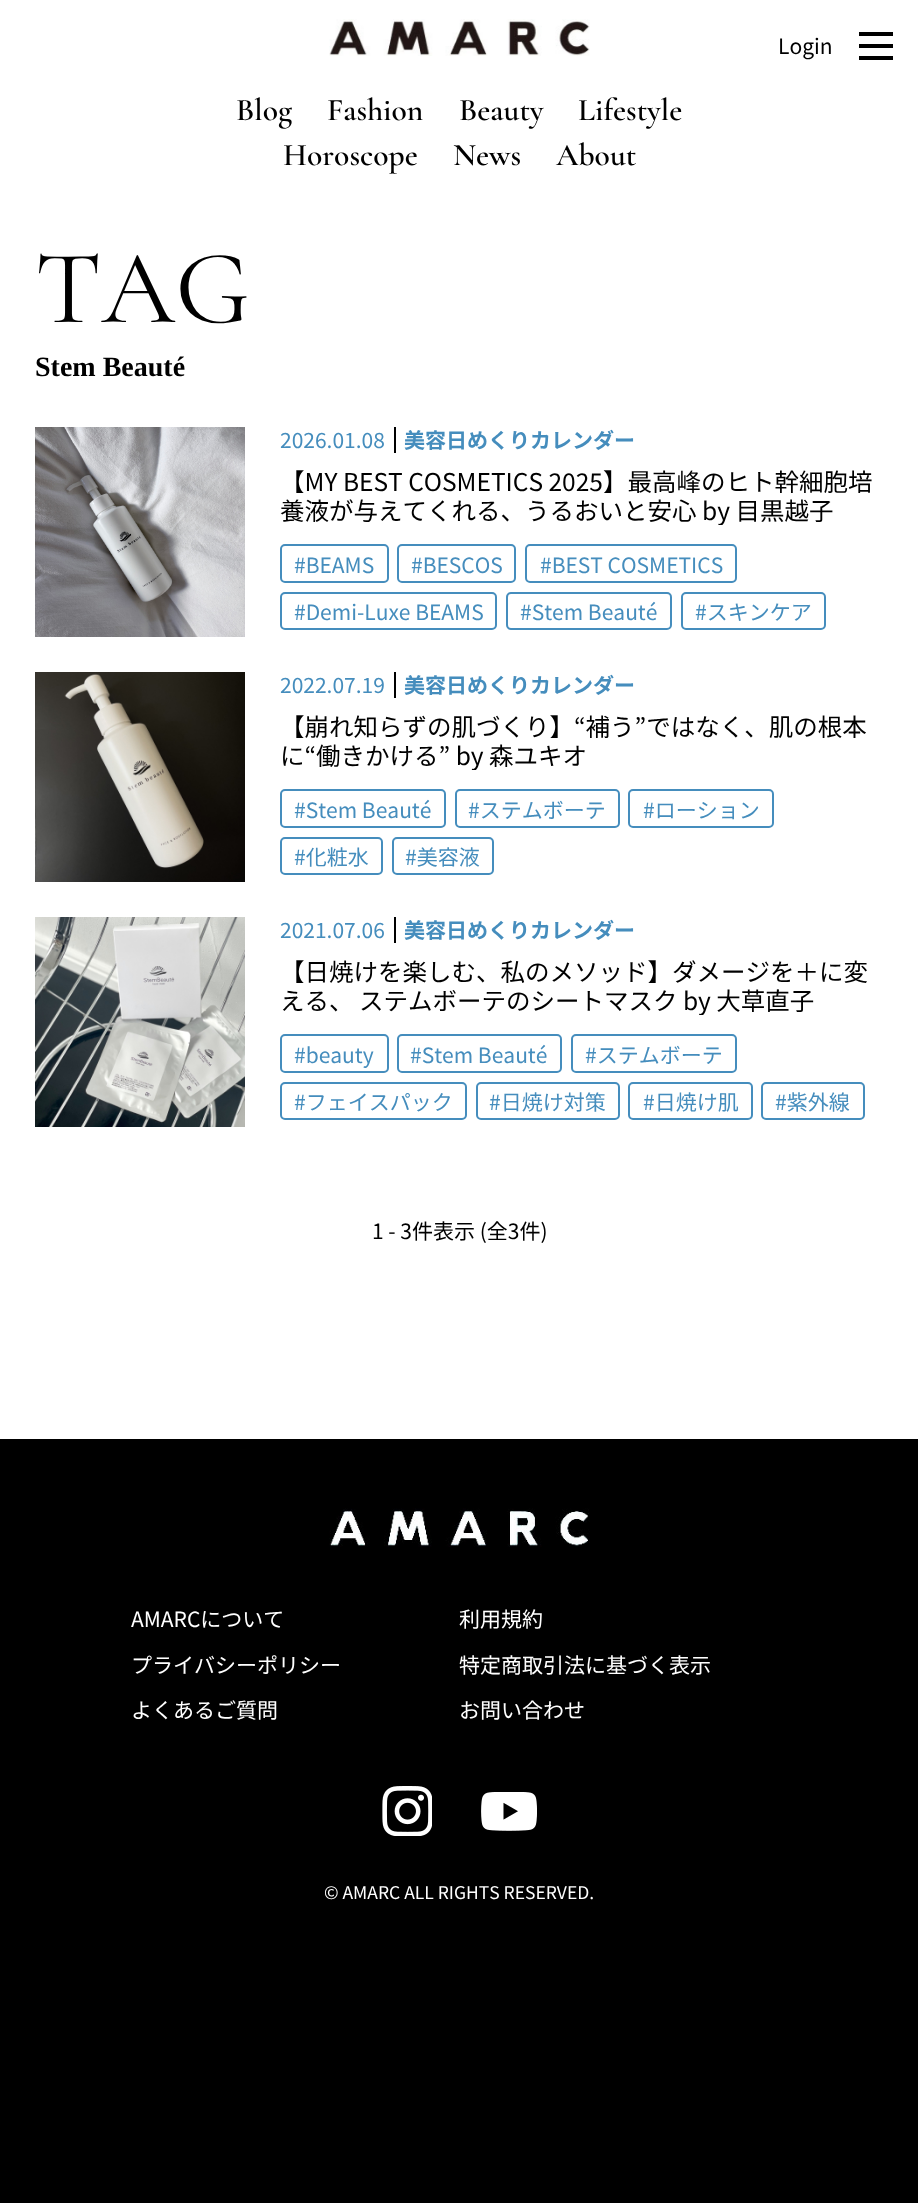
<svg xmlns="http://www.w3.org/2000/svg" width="918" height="2203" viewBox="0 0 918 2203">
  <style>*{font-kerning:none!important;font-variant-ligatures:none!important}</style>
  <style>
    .t1 { font: 21px Noto Sans JP; fill: #000; }
    .t2 { font: 600 31.5px Cormorant Garamond; fill: #000; }
    .t3 { font: 105px Cormorant Garamond; fill: #000; }
    .t4 { font: bold 28px Liberation Serif; fill: #000; }
    .t5 { font: 21px Noto Sans JP; fill: #458dbd; }
    .t6 { font: bold 21px Noto Sans JP; fill: #458dbd; }
    .t7 { font: 24.5px Noto Sans JP; fill: #000; }
    .t8 { font: 21px Noto Sans JP; fill: #fff; }
    .t9 { font: 17.5px Noto Sans JP; fill: #fff; }
  </style>
  <defs>
    <clipPath id="clip1"><rect x="280" y="467" width="604" height="58"/></clipPath>
    <clipPath id="clip2"><rect x="280" y="712" width="604" height="58"/></clipPath>
    <clipPath id="clip3"><rect x="280" y="957" width="604" height="58"/></clipPath>
  </defs>
  <rect width="100%" height="100%" fill="#000"/>
  <rect x="0" y="0" width="918" height="1439" fill="#fff"/>
  <image x="329" y="19" width="261" height="37" href="images/1.png"/>
  <text x="778" y="54" class="t1">Login</text>
  <rect x="859" y="32" width="34" height="4" fill="#000"/>
  <rect x="859" y="44" width="34" height="4" fill="#000"/>
  <rect x="859" y="56" width="34" height="4" fill="#000"/>
  <text x="236" y="120" class="t2">Blog</text>
  <text x="327" y="120" class="t2">Fashion</text>
  <text x="459" y="120" class="t2">Beauty</text>
  <text x="578" y="120" class="t2">Lifestyle</text>
  <text x="283" y="165" class="t2">Horoscope</text>
  <text x="453" y="165" class="t2">News</text>
  <text x="556" y="165" class="t2">About</text>
  <text x="35" y="322" class="t3">TAG</text>
  <text x="35" y="376" class="t4">Stem Beauté</text>
  <image x="35" y="427" width="210" height="210" href="images/2.png"/>
  <rect x="394" y="427" width="2" height="26" fill="#000"/>
  <text x="280" y="448" class="t5">2026.01.08</text>
  <text x="404" y="448" class="t6">美容日めくりカレンダー</text>
  <text x="280" y="491" class="t7">【MY BEST COSMETICS 2025】最高峰のヒト幹細胞培</text>
  <text x="280" y="520" class="t7">養液が与えてくれる、うるおいと安心</text>
  <g clip-path="url(#clip1)">
    <text x="702" y="520" class="t7">by 目黒越子</text>
  </g>
  <rect x="281" y="545" width="107" height="37" rx="4" fill="none" stroke="#458dbd" stroke-width="2"/>
  <text x="294" y="573" class="t5">#BEAMS</text>
  <rect x="398" y="545" width="117" height="37" rx="4" fill="none" stroke="#458dbd" stroke-width="2"/>
  <text x="411" y="573" class="t5">#BESCOS</text>
  <rect x="526" y="545" width="210" height="37" rx="4" fill="none" stroke="#458dbd" stroke-width="2"/>
  <text x="540" y="573" class="t5">#BEST COSMETICS</text>
  <rect x="281" y="593" width="215" height="36" rx="4" fill="none" stroke="#458dbd" stroke-width="2"/>
  <text x="294" y="620" class="t5">#Demi-Luxe BEAMS</text>
  <rect x="507" y="593" width="164" height="36" rx="4" fill="none" stroke="#458dbd" stroke-width="2"/>
  <text x="520" y="620" class="t5">#Stem Beauté</text>
  <rect x="682" y="593" width="143" height="36" rx="4" fill="none" stroke="#458dbd" stroke-width="2"/>
  <text x="695" y="620" class="t5">#スキンケア</text>
  <image x="35" y="672" width="210" height="210" href="images/3.png"/>
  <rect x="394" y="672" width="2" height="26" fill="#000"/>
  <text x="280" y="693" class="t5">2022.07.19</text>
  <text x="404" y="693" class="t6">美容日めくりカレンダー</text>
  <text x="280" y="736" class="t7">【崩れ知らずの肌づくり】“補う”ではなく、肌の根本</text>
  <g clip-path="url(#clip2)">
    <text x="280" y="765" class="t7">に“働きかける” by 森ユキオ</text>
  </g>
  <rect x="281" y="790" width="164" height="37" rx="4" fill="none" stroke="#458dbd" stroke-width="2"/>
  <text x="294" y="818" class="t5">#Stem Beauté</text>
  <rect x="456" y="790" width="163" height="37" rx="4" fill="none" stroke="#458dbd" stroke-width="2"/>
  <text x="468" y="818" class="t5">#ステムボーテ</text>
  <rect x="629" y="790" width="144" height="37" rx="4" fill="none" stroke="#458dbd" stroke-width="2"/>
  <text x="643" y="818" class="t5">#ローション</text>
  <rect x="281" y="838" width="101" height="36" rx="4" fill="none" stroke="#458dbd" stroke-width="2"/>
  <text x="294" y="865" class="t5">#化粧水</text>
  <rect x="393" y="838" width="100" height="36" rx="4" fill="none" stroke="#458dbd" stroke-width="2"/>
  <text x="405" y="865" class="t5">#美容液</text>
  <image x="35" y="917" width="210" height="210" href="images/4.png"/>
  <rect x="394" y="917" width="2" height="26" fill="#000"/>
  <text x="280" y="938" class="t5">2021.07.06</text>
  <text x="404" y="938" class="t6">美容日めくりカレンダー</text>
  <text x="280" y="981" class="t7">【日焼けを楽しむ、私のメソッド】ダメージを＋に変</text>
  <g clip-path="url(#clip3)">
    <text x="280" y="1010" class="t7">える、 ステムボーテのシートマスク by 大草直子</text>
  </g>
  <rect x="281" y="1035" width="107" height="37" rx="4" fill="none" stroke="#458dbd" stroke-width="2"/>
  <text x="294" y="1063" class="t5">#beauty</text>
  <rect x="398" y="1035" width="163" height="37" rx="4" fill="none" stroke="#458dbd" stroke-width="2"/>
  <text x="410" y="1063" class="t5">#Stem Beauté</text>
  <rect x="572" y="1035" width="164" height="37" rx="4" fill="none" stroke="#458dbd" stroke-width="2"/>
  <text x="585" y="1063" class="t5">#ステムボーテ</text>
  <rect x="281" y="1083" width="185" height="36" rx="4" fill="none" stroke="#458dbd" stroke-width="2"/>
  <text x="294" y="1110" class="t5">#フェイスパック</text>
  <rect x="477" y="1083" width="142" height="36" rx="4" fill="none" stroke="#458dbd" stroke-width="2"/>
  <text x="489" y="1110" class="t5">#日焼け対策</text>
  <rect x="629" y="1083" width="123" height="36" rx="4" fill="none" stroke="#458dbd" stroke-width="2"/>
  <text x="643" y="1110" class="t5">#日焼け肌</text>
  <rect x="762" y="1083" width="102" height="36" rx="4" fill="none" stroke="#458dbd" stroke-width="2"/>
  <text x="775" y="1110" class="t5">#紫外線</text>
  <text x="372" y="1239" class="t1">1 - 3件表示 (全3件)</text>
  <image x="329" y="1508" width="261" height="39" href="images/5.png"/>
  <text x="131" y="1627" class="t8">AMARCについて</text>
  <text x="459" y="1627" class="t8">利用規約</text>
  <text x="131" y="1673" class="t8">プライバシーポリシー</text>
  <text x="459" y="1673" class="t8">特定商取引法に基づく表示</text>
  <text x="131" y="1718" class="t8">よくあるご質問</text>
  <text x="459" y="1718" class="t8">お問い合わせ</text>
  <image x="382" y="1786" width="50" height="50" href="images/6.png"/>
  <image x="481" y="1792" width="56" height="39" href="images/7.png"/>
  <text x="324" y="1899" class="t9">© AMARC ALL RIGHTS RESERVED.</text>
</svg>
